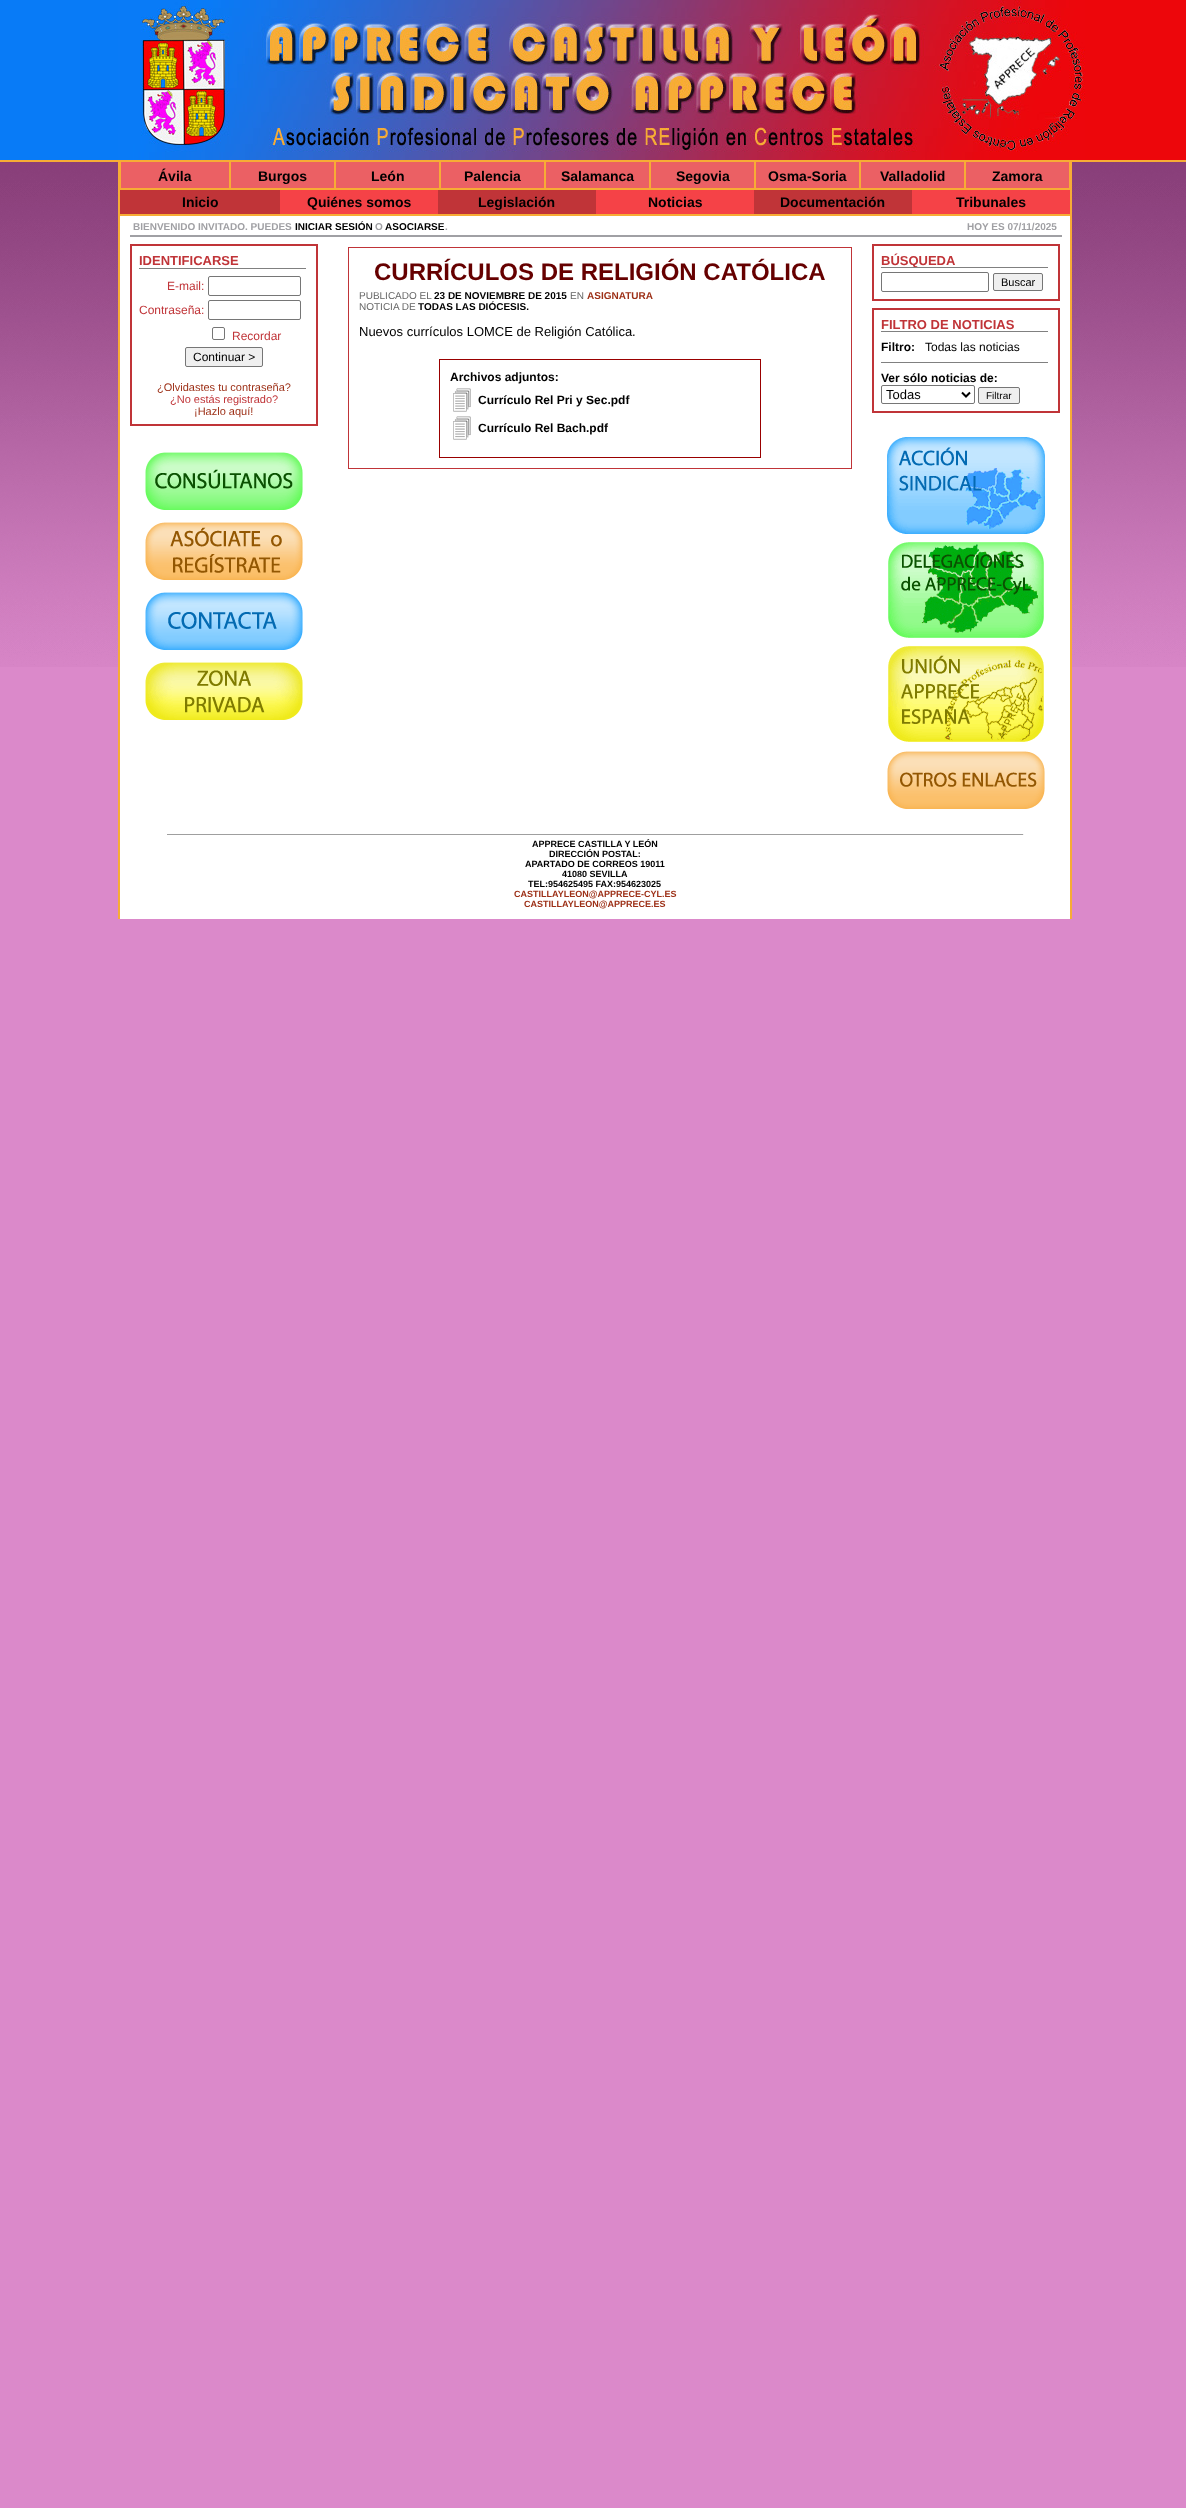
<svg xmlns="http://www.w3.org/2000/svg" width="1186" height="2508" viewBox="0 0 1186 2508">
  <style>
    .t1 { font: bold 14px Liberation Sans; fill: #000; }
    .t2 { font: bold 10px Liberation Sans; fill: #a0a0a4; }
    .t3 { font: bold 10px Liberation Sans; fill: #000; }
    .t4 { font: bold 13px Liberation Sans; fill: #c03438; }
    .t5 { font: 12px Liberation Sans; fill: #c03438; }
    .t6 { font: 12px Liberation Sans; fill: #000; }
    .t7 { font: 11px Liberation Sans; fill: #9d3017; }
    .t8 { font: 11px Liberation Sans; fill: #c03438; }
    .t9 { font: bold 24px Liberation Sans; fill: #600; }
    .t10 { font: 10px Liberation Sans; fill: #666; }
    .t11 { font: bold 10px Liberation Sans; fill: #9d3017; }
    .t12 { font: 13px Liberation Sans; fill: #000; }
    .t13 { font: bold 12px Liberation Sans; fill: #000; }
    .t14 { font: 11px Liberation Sans; fill: #000; }
    .t15 { font: 10px Liberation Sans; fill: #000; }
    .t16 { font: bold 9px Liberation Sans; fill: #000; }
    .t17 { font: bold 9px Liberation Sans; fill: #9d3017; }
  </style>
  <rect width="100%" height="100%" fill="#db89ca"/>
  <image x="0" y="162" width="1186" height="505" href="images/1.png"/>
  <rect x="0" y="0" width="118" height="160" fill="#087bf7"/>
  <rect x="0" y="160" width="1186" height="2" fill="#f7ac35"/>
  <image x="118" y="0" width="967" height="160" href="images/2.png"/>
  <rect x="1085" y="0" width="101" height="160" fill="#ed060b"/>
  <rect x="120" y="216" width="950" height="703" fill="#fff"/>
  <rect x="1070" y="162" width="2" height="757" fill="#f7ac35"/>
  <rect x="118" y="162" width="2" height="757" fill="#f7ac35"/>
  <rect x="121" y="162" width="108" height="26" fill="#eb6064"/>
  <rect x="229" y="162" width="1" height="28" fill="#f7ac35"/>
  <rect x="120" y="188" width="110" height="2" fill="#f7ac35"/>
  <rect x="120" y="162" width="1" height="28" fill="#f7ac35"/>
  <text x="158" y="181" class="t1">Ávila</text>
  <rect x="231" y="162" width="103" height="26" fill="#eb6064"/>
  <rect x="334" y="162" width="1" height="28" fill="#f7ac35"/>
  <rect x="230" y="188" width="105" height="2" fill="#f7ac35"/>
  <rect x="230" y="162" width="1" height="28" fill="#f7ac35"/>
  <text x="258" y="181" class="t1">Burgos</text>
  <rect x="336" y="162" width="103" height="26" fill="#eb6064"/>
  <rect x="439" y="162" width="1" height="28" fill="#f7ac35"/>
  <rect x="335" y="188" width="105" height="2" fill="#f7ac35"/>
  <rect x="335" y="162" width="1" height="28" fill="#f7ac35"/>
  <text x="371" y="181" class="t1">León</text>
  <rect x="441" y="162" width="103" height="26" fill="#eb6064"/>
  <rect x="544" y="162" width="1" height="28" fill="#f7ac35"/>
  <rect x="440" y="188" width="105" height="2" fill="#f7ac35"/>
  <rect x="440" y="162" width="1" height="28" fill="#f7ac35"/>
  <text x="464" y="181" class="t1">Palencia</text>
  <rect x="546" y="162" width="103" height="26" fill="#eb6064"/>
  <rect x="649" y="162" width="1" height="28" fill="#f7ac35"/>
  <rect x="545" y="188" width="105" height="2" fill="#f7ac35"/>
  <rect x="545" y="162" width="1" height="28" fill="#f7ac35"/>
  <text x="561" y="181" class="t1">Salamanca</text>
  <rect x="651" y="162" width="103" height="26" fill="#eb6064"/>
  <rect x="754" y="162" width="1" height="28" fill="#f7ac35"/>
  <rect x="650" y="188" width="105" height="2" fill="#f7ac35"/>
  <rect x="650" y="162" width="1" height="28" fill="#f7ac35"/>
  <text x="676" y="181" class="t1">Segovia</text>
  <rect x="756" y="162" width="103" height="26" fill="#eb6064"/>
  <rect x="859" y="162" width="1" height="28" fill="#f7ac35"/>
  <rect x="755" y="188" width="105" height="2" fill="#f7ac35"/>
  <rect x="755" y="162" width="1" height="28" fill="#f7ac35"/>
  <text x="768" y="181" class="t1">Osma-Soria</text>
  <rect x="861" y="162" width="103" height="26" fill="#eb6064"/>
  <rect x="964" y="162" width="1" height="28" fill="#f7ac35"/>
  <rect x="860" y="188" width="105" height="2" fill="#f7ac35"/>
  <rect x="860" y="162" width="1" height="28" fill="#f7ac35"/>
  <text x="880" y="181" class="t1">Valladolid</text>
  <rect x="966" y="162" width="103" height="26" fill="#eb6064"/>
  <rect x="1069" y="162" width="1" height="28" fill="#f7ac35"/>
  <rect x="965" y="188" width="105" height="2" fill="#f7ac35"/>
  <rect x="965" y="162" width="1" height="28" fill="#f7ac35"/>
  <text x="992" y="181" class="t1">Zamora</text>
  <rect x="120" y="190" width="160" height="24" fill="#c03438"/>
  <rect x="120" y="214" width="950" height="2" fill="#f7ac35"/>
  <text x="182" y="207" class="t1">Inicio</text>
  <rect x="280" y="190" width="158" height="24" fill="#f54247"/>
  <text x="307" y="207" class="t1">Quiénes somos</text>
  <rect x="438" y="190" width="158" height="24" fill="#c03438"/>
  <text x="478" y="207" class="t1">Legislación</text>
  <rect x="596" y="190" width="158" height="24" fill="#f54247"/>
  <text x="648" y="207" class="t1">Noticias</text>
  <rect x="754" y="190" width="158" height="24" fill="#c03438"/>
  <text x="780" y="207" class="t1">Documentación</text>
  <rect x="912" y="190" width="158" height="24" fill="#f54247"/>
  <text x="956" y="207" class="t1">Tribunales</text>
  <text x="133" y="230" class="t2">BIENVENIDO INVITADO. PUEDES</text>
  <text x="295" y="230" class="t3">INICIAR SESIÓN</text>
  <text x="375" y="230" class="t2">O</text>
  <text x="385" y="230" class="t3">ASOCIARSE</text>
  <text x="445" y="230" class="t2">.</text>
  <text x="967" y="230" class="t2">HOY ES 07/11/2025</text>
  <rect x="130" y="235" width="932" height="2" fill="#a0a0a4"/>
  <rect x="131" y="245" width="186" height="180" fill="none" stroke="#c03438" stroke-width="2"/>
  <text x="139" y="265" class="t4">IDENTIFICARSE</text>
  <rect x="139" y="268" width="167" height="1" fill="#808080"/>
  <text x="167" y="290" class="t5">E-mail:</text>
  <rect x="208.5" y="276.5" width="92" height="19" rx="1.5" fill="none" stroke="#767676"/>
  <text x="139" y="314" class="t5">Contraseña:</text>
  <rect x="208.5" y="300.5" width="92" height="19" rx="1.5" fill="none" stroke="#767676"/>
  <rect x="212.5" y="327.5" width="12" height="12" rx="1.5" fill="none" stroke="#767676"/>
  <text x="232" y="340" class="t5">Recordar</text>
  <rect x="185.5" y="347.5" width="77" height="19" rx="1.5" fill="#efefef" stroke="#767676"/>
  <text x="193" y="361" class="t6">Continuar &gt;</text>
  <text x="157" y="391" class="t7">¿Olvidastes tu contraseña?</text>
  <text x="170" y="403" class="t8">¿No estás registrado?</text>
  <text x="194" y="415" class="t7">¡Hazlo aquí!</text>
  <image x="145" y="452" width="158" height="58" href="images/3.png"/>
  <image x="145" y="522" width="158" height="58" href="images/4.png"/>
  <image x="145" y="592" width="158" height="58" href="images/5.png"/>
  <image x="145" y="662" width="158" height="58" href="images/6.png"/>
  <rect x="348.5" y="247.5" width="503" height="221" fill="none" stroke="#c03438"/>
  <text x="374" y="280" class="t9">CURRÍCULOS DE RELIGIÓN CATÓLICA</text>
  <text x="359" y="299" class="t10">PUBLICADO EL</text>
  <text x="434" y="299" class="t3">23 DE NOVIEMBRE DE 2015</text>
  <text x="570" y="299" class="t10">EN</text>
  <text x="587" y="299" class="t11">ASIGNATURA</text>
  <text x="359" y="310" class="t10">NOTICIA DE</text>
  <text x="418" y="310" class="t3">TODAS LAS DIÓCESIS.</text>
  <text x="359" y="336" class="t12">Nuevos currículos LOMCE de Religión Católica.</text>
  <rect x="439.5" y="359.5" width="321" height="98" fill="none" stroke="#900"/>
  <text x="450" y="381" class="t13">Archivos adjuntos:</text>
  <image x="453" y="388" width="18" height="24" href="images/7.png"/>
  <text x="478" y="404" class="t13">Currículo Rel Pri y Sec.pdf</text>
  <image x="453" y="416" width="18" height="24" href="images/7.png"/>
  <text x="478" y="432" class="t13">Currículo Rel Bach.pdf</text>
  <rect x="873" y="245" width="186" height="55" fill="none" stroke="#c03438" stroke-width="2"/>
  <text x="881" y="265" class="t4">BÚSQUEDA</text>
  <rect x="881" y="267" width="167" height="1" fill="#808080"/>
  <rect x="881.5" y="272.5" width="107" height="19" rx="1.5" fill="none" stroke="#767676"/>
  <rect x="993.5" y="273.5" width="49" height="17" rx="1.5" fill="#efefef" stroke="#767676"/>
  <text x="1001" y="286" class="t14">Buscar</text>
  <rect x="873" y="309" width="186" height="103" fill="none" stroke="#c03438" stroke-width="2"/>
  <text x="881" y="329" class="t4">FILTRO DE NOTICIAS</text>
  <rect x="881" y="331" width="167" height="1" fill="#808080"/>
  <text x="881" y="351" class="t13">Filtro:</text>
  <text x="925" y="351" class="t6">Todas las noticias</text>
  <rect x="881" y="362" width="167" height="1" fill="#808080"/>
  <text x="881" y="382" class="t13">Ver sólo noticias de:</text>
  <rect x="881.5" y="385.5" width="93" height="18" rx="1.5" fill="none" stroke="#767676"/>
  <path d="M962 392.5L966 396.5L970 392.5" fill="none" stroke="#000" stroke-width="2"/>
  <text x="886" y="399" class="t12">Todas</text>
  <rect x="978.5" y="387.5" width="41" height="16" rx="1.5" fill="#efefef" stroke="#767676"/>
  <text x="986" y="399" class="t15">Filtrar</text>
  <image x="887" y="437" width="158" height="97" href="images/8.png"/>
  <image x="888" y="542" width="156" height="96" href="images/9.png"/>
  <image x="888" y="646" width="156" height="96" href="images/10.png"/>
  <image x="887" y="751" width="158" height="58" href="images/11.png"/>
  <rect x="167" y="834" width="857" height="1" fill="#9f9f9f"/>
  <rect x="1023" y="834" width="1" height="1" fill="#eee"/>
  <text x="532" y="847" class="t16">APPRECE CASTILLA Y LEÓN</text>
  <text x="549" y="857" class="t16">DIRECCIÓN POSTAL:</text>
  <text x="525" y="867" class="t16">APARTADO DE CORREOS 19011</text>
  <text x="562" y="877" class="t16">41080 SEVILLA</text>
  <text x="528" y="887" class="t16">TEL:954625495 FAX:954623025</text>
  <text x="514" y="897" class="t17">CASTILLAYLEON@APPRECE-CYL.ES</text>
  <text x="524" y="907" class="t17">CASTILLAYLEON@APPRECE.ES</text>
</svg>
